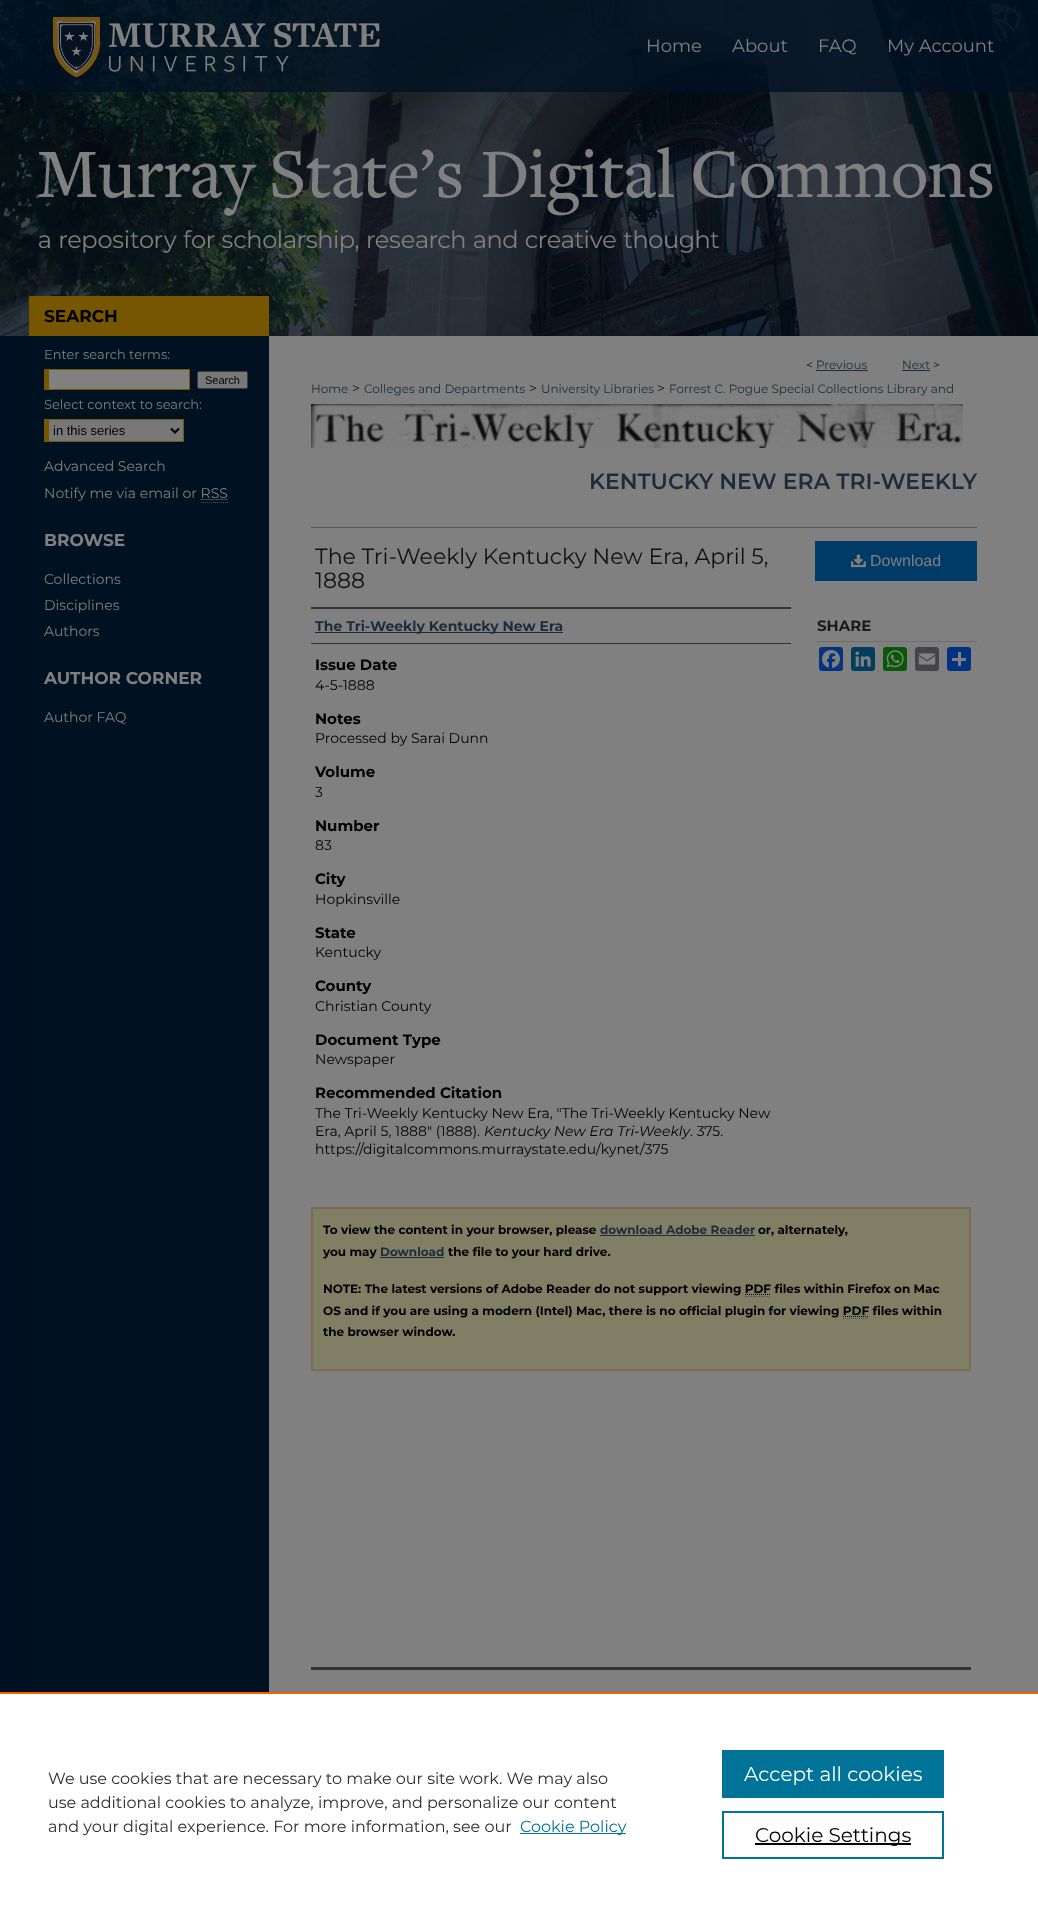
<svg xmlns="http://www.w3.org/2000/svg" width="1038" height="1912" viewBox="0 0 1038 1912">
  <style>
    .t1 { font: 18px Montserrat; fill: #808080; }
    .t2 { font: bold 17px Montserrat; fill: #000; }
    .t3 { font: 13px Montserrat; fill: #808080; }
    .t4 { font: 11px Liberation Sans; fill: #000; }
    .t5 { font: 13px Liberation Sans; fill: #000; }
    .t6 { font: 14px Montserrat; fill: #808080; }
    .t7 { font: bold 17px Montserrat; fill: #808080; }
    .t8 { font: 12px Montserrat; fill: #111; }
    .t9 { font: 12px Montserrat; fill: #1d2c3b; }
    .t10 { font: 14px Montserrat; fill: #000; }
    .t11 { font: 600 22px Montserrat; fill: #1d2c3b; }
    .t12 { font: 22px Montserrat; fill: #111; }
    .t13 { font: bold 14px Montserrat; fill: #1d2c3b; }
    .t14 { font: bold 15px Montserrat; fill: #000; }
    .t15 { font: italic 14px Montserrat; fill: #000; }
    .t16 { font: 16px Liberation Sans; fill: #808080; }
    .t17 { font: bold 15px Montserrat; fill: #1a1a1a; }
    .t18 { font: bold 12px Montserrat; fill: #000; }
    .t19 { font: bold 12px Montserrat; fill: #1d2c3b; }
    .t20 { font: 16px Montserrat; fill: #2e2e2e; }
    .t21 { font: 16px Montserrat; fill: #007398; }
    .t22 { font: 20px Montserrat; fill: #fff; }
    .t23 { font: 20px Montserrat; fill: #000; }
  </style>
  <rect width="100%" height="100%" fill="#808080"/>
  <image x="0" y="336" width="29" height="1356" href="images/1.png"/>
  <image x="0" y="0" width="1038" height="336" href="images/2.png"/>
  <image x="53" y="17" width="327" height="61" href="images/3.png"/>
  <text x="646" y="52" class="t1">Home</text>
  <text x="732" y="52" class="t1">About</text>
  <text x="818" y="52" class="t1">FAQ</text>
  <text x="887" y="52" class="t1">My Account</text>
  <image x="38" y="146" width="955" height="107" href="images/4.png"/>
  <rect x="29" y="336" width="240" height="1356" fill="#012"/>
  <rect x="29" y="296" width="240" height="40" fill="#765600"/>
  <text x="44" y="322" class="t2">SEARCH</text>
  <text x="44" y="359" class="t3">Enter search terms:</text>
  <rect x="49" y="370" width="140" height="19" fill="#808080"/>
  <rect x="44" y="369" width="146" height="1" fill="#765600"/>
  <rect x="189" y="369" width="1" height="21" fill="#765600"/>
  <rect x="44" y="389" width="146" height="1" fill="#765600"/>
  <rect x="44" y="369" width="5" height="21" fill="#765600"/>
  <rect x="197.5" y="371.5" width="50" height="17" rx="1.5" fill="#787878" stroke="#3b3b3b"/>
  <text x="205" y="384" class="t4">Search</text>
  <text x="44" y="409" class="t3">Select context to search:</text>
  <rect x="49" y="420" width="134" height="21" fill="#787878"/>
  <rect x="44" y="419" width="140" height="1" fill="#765600"/>
  <rect x="183" y="419" width="1" height="23" fill="#765600"/>
  <rect x="44" y="441" width="140" height="1" fill="#765600"/>
  <rect x="44" y="419" width="5" height="23" fill="#765600"/>
  <path d="M171 428.5L175 432.5L179 428.5" fill="none" stroke="#000" stroke-width="2"/>
  <text x="53" y="435" class="t5">in this series</text>
  <text x="44" y="471" class="t6">Advanced Search</text>
  <text x="44" y="498" class="t6">Notify me via email or RSS</text>
  <path d="M200.5 499.5H228" fill="none" stroke="#808080" stroke-dasharray="1 1"/>
  <path d="M201 502.5H228" fill="none" stroke="#4d4d4d" stroke-dasharray="1 1"/>
  <text x="44" y="546" class="t7">BROWSE</text>
  <text x="44" y="584" class="t6">Collections</text>
  <text x="44" y="610" class="t6">Disciplines</text>
  <text x="44" y="636" class="t6">Authors</text>
  <text x="44" y="684" class="t7">AUTHOR CORNER</text>
  <text x="44" y="722" class="t6">Author FAQ</text>
  <text x="806" y="369" class="t8">&lt;</text>
  <text x="816" y="369" class="t9">Previous</text>
  <rect x="816" y="370" width="52" height="1" fill="#1d2c3b"/>
  <text x="902" y="369" class="t9">Next</text>
  <rect x="902" y="370" width="28" height="1" fill="#1d2c3b"/>
  <text x="933" y="369" class="t8">&gt;</text>
  <text x="311" y="393" class="t9">Home</text>
  <text x="352" y="393" class="t10">&gt;</text>
  <text x="364" y="393" class="t9">Colleges and Departments</text>
  <text x="529" y="393" class="t10">&gt;</text>
  <text x="541" y="393" class="t9">University Libraries</text>
  <text x="657" y="393" class="t10">&gt;</text>
  <text x="669" y="393" class="t9">Forrest C. Pogue Special Collections Library and</text>
  <image x="311" y="404" width="652" height="44" href="images/5.png"/>
  <text x="589" y="489" class="t11">KENTUCKY NEW ERA TRI-WEEKLY</text>
  <rect x="311" y="527" width="666" height="1" fill="#555"/>
  <text x="315" y="564" class="t12">The Tri-Weekly Kentucky New Era, April 5,</text>
  <text x="315" y="588" class="t12">1888</text>
  <rect x="311" y="607" width="480" height="2" fill="#333"/>
  <rect x="311" y="643" width="480" height="1" fill="#333"/>
  <rect x="315" y="632" width="248" height="1" fill="#1d2c3b"/>
  <text x="315" y="631" class="t13">The Tri-Weekly Kentucky New Era</text>
  <text x="315" y="670" class="t14">Issue Date</text>
  <text x="315" y="690" class="t10">4-5-1888</text>
  <text x="315" y="724" class="t14">Notes</text>
  <text x="315" y="743" class="t10">Processed by Sarai Dunn</text>
  <text x="315" y="777" class="t14">Volume</text>
  <text x="315" y="797" class="t10">3</text>
  <text x="315" y="831" class="t14">Number</text>
  <text x="315" y="850" class="t10">83</text>
  <text x="315" y="884" class="t14">City</text>
  <text x="315" y="904" class="t10">Hopkinsville</text>
  <text x="315" y="938" class="t14">State</text>
  <text x="315" y="957" class="t10">Kentucky</text>
  <text x="315" y="991" class="t14">County</text>
  <text x="315" y="1011" class="t10">Christian County</text>
  <text x="315" y="1045" class="t14">Document Type</text>
  <text x="315" y="1064" class="t10">Newspaper</text>
  <text x="315" y="1098" class="t14">Recommended Citation</text>
  <text x="315" y="1118" class="t10">The Tri-Weekly Kentucky New Era, "The Tri-Weekly Kentucky New</text>
  <text x="315" y="1136" class="t10">Era, April 5, 1888" (1888).</text>
  <text x="484" y="1136" class="t15">Kentucky New Era Tri-Weekly</text>
  <text x="690" y="1136" class="t10">. 375.</text>
  <text x="315" y="1154" class="t10">https://digitalcommons.murraystate.edu/kynet/375</text>
  <rect x="815" y="541" width="162" height="40" fill="#003a66"/>
  <image x="851" y="554" width="15" height="14" href="images/6.png"/>
  <text x="870" y="566" class="t16">Download</text>
  <rect x="817" y="641" width="160" height="1" fill="#6f6f6f"/>
  <text x="817" y="631" class="t17">SHARE</text>
  <rect x="819" y="647" width="24" height="24" rx="3" fill="#043380"/>
  <image x="822" y="650" width="18" height="18" href="images/7.png"/>
  <rect x="851" y="647" width="24" height="24" rx="3" fill="#003e5b"/>
  <image x="855" y="651" width="16" height="16" href="images/8.png"/>
  <rect x="883" y="647" width="24" height="24" rx="3" fill="#095805"/>
  <image x="886" y="650" width="18" height="18" href="images/9.png"/>
  <rect x="915" y="647" width="24" height="24" rx="3" fill="#444548"/>
  <image x="918" y="653" width="18" height="12" href="images/10.png"/>
  <rect x="947" y="647" width="24" height="24" rx="3" fill="#013380"/>
  <rect x="958" y="652" width="3" height="14" fill="#808080"/>
  <rect x="952" y="658" width="14" height="3" fill="#808080"/>
  <rect x="311" y="1667" width="660" height="3" fill="#333"/>
  <rect x="312" y="1208" width="658" height="162" fill="#807e65" stroke="#786e51" stroke-width="2"/>
  <text x="323" y="1234" class="t18">To view the content in your browser, please</text>
  <text x="600" y="1234" class="t19">download Adobe Reader</text>
  <rect x="600" y="1235" width="155" height="1" fill="#1d2c3b"/>
  <text x="758" y="1234" class="t18">or, alternately,</text>
  <text x="323" y="1256" class="t18">you may</text>
  <text x="380" y="1256" class="t19">Download</text>
  <rect x="380" y="1257" width="64" height="1" fill="#1d2c3b"/>
  <text x="448" y="1256" class="t18">the file to your hard drive.</text>
  <text x="323" y="1293" class="t18">NOTE: The latest versions of Adobe Reader do not support viewing PDF files within Firefox on Mac</text>
  <path d="M745 1294.5H771" fill="none" stroke="#000" stroke-dasharray="1 1"/>
  <path d="M745 1296.5H771" fill="none" stroke="#4d4d4d" stroke-dasharray="1 1"/>
  <text x="323" y="1315" class="t18">OS and if you are using a modern (Intel) Mac, there is no official plugin for viewing PDF files within</text>
  <path d="M843 1316.5H869" fill="none" stroke="#000" stroke-dasharray="1 1"/>
  <path d="M843 1318.5H869" fill="none" stroke="#4d4d4d" stroke-dasharray="1 1"/>
  <text x="323" y="1336" class="t18">the browser window.</text>
  <rect x="0" y="1694" width="1038" height="218" fill="#fff"/>
  <rect x="0" y="1692" width="1038" height="2" fill="#eb6500"/>
  <text x="48" y="1784" class="t20">We use cookies that are necessary to make our site work. We may also</text>
  <text x="48" y="1808" class="t20">use additional cookies to analyze, improve, and personalize our content</text>
  <text x="48" y="1832" class="t20">and your digital experience. For more information, see our</text>
  <rect x="520" y="1833" width="106" height="1" fill="#007398"/>
  <text x="520" y="1832" class="t21">Cookie Policy</text>
  <rect x="722" y="1750" width="222" height="48" fill="#007398"/>
  <text x="744" y="1781" class="t22">Accept all cookies</text>
  <rect x="723" y="1812" width="220" height="46" fill="none" stroke="#007398" stroke-width="2"/>
  <rect x="755" y="1843" width="156" height="2" fill="#000"/>
  <text x="755" y="1842" class="t23">Cookie Settings</text>
</svg>
